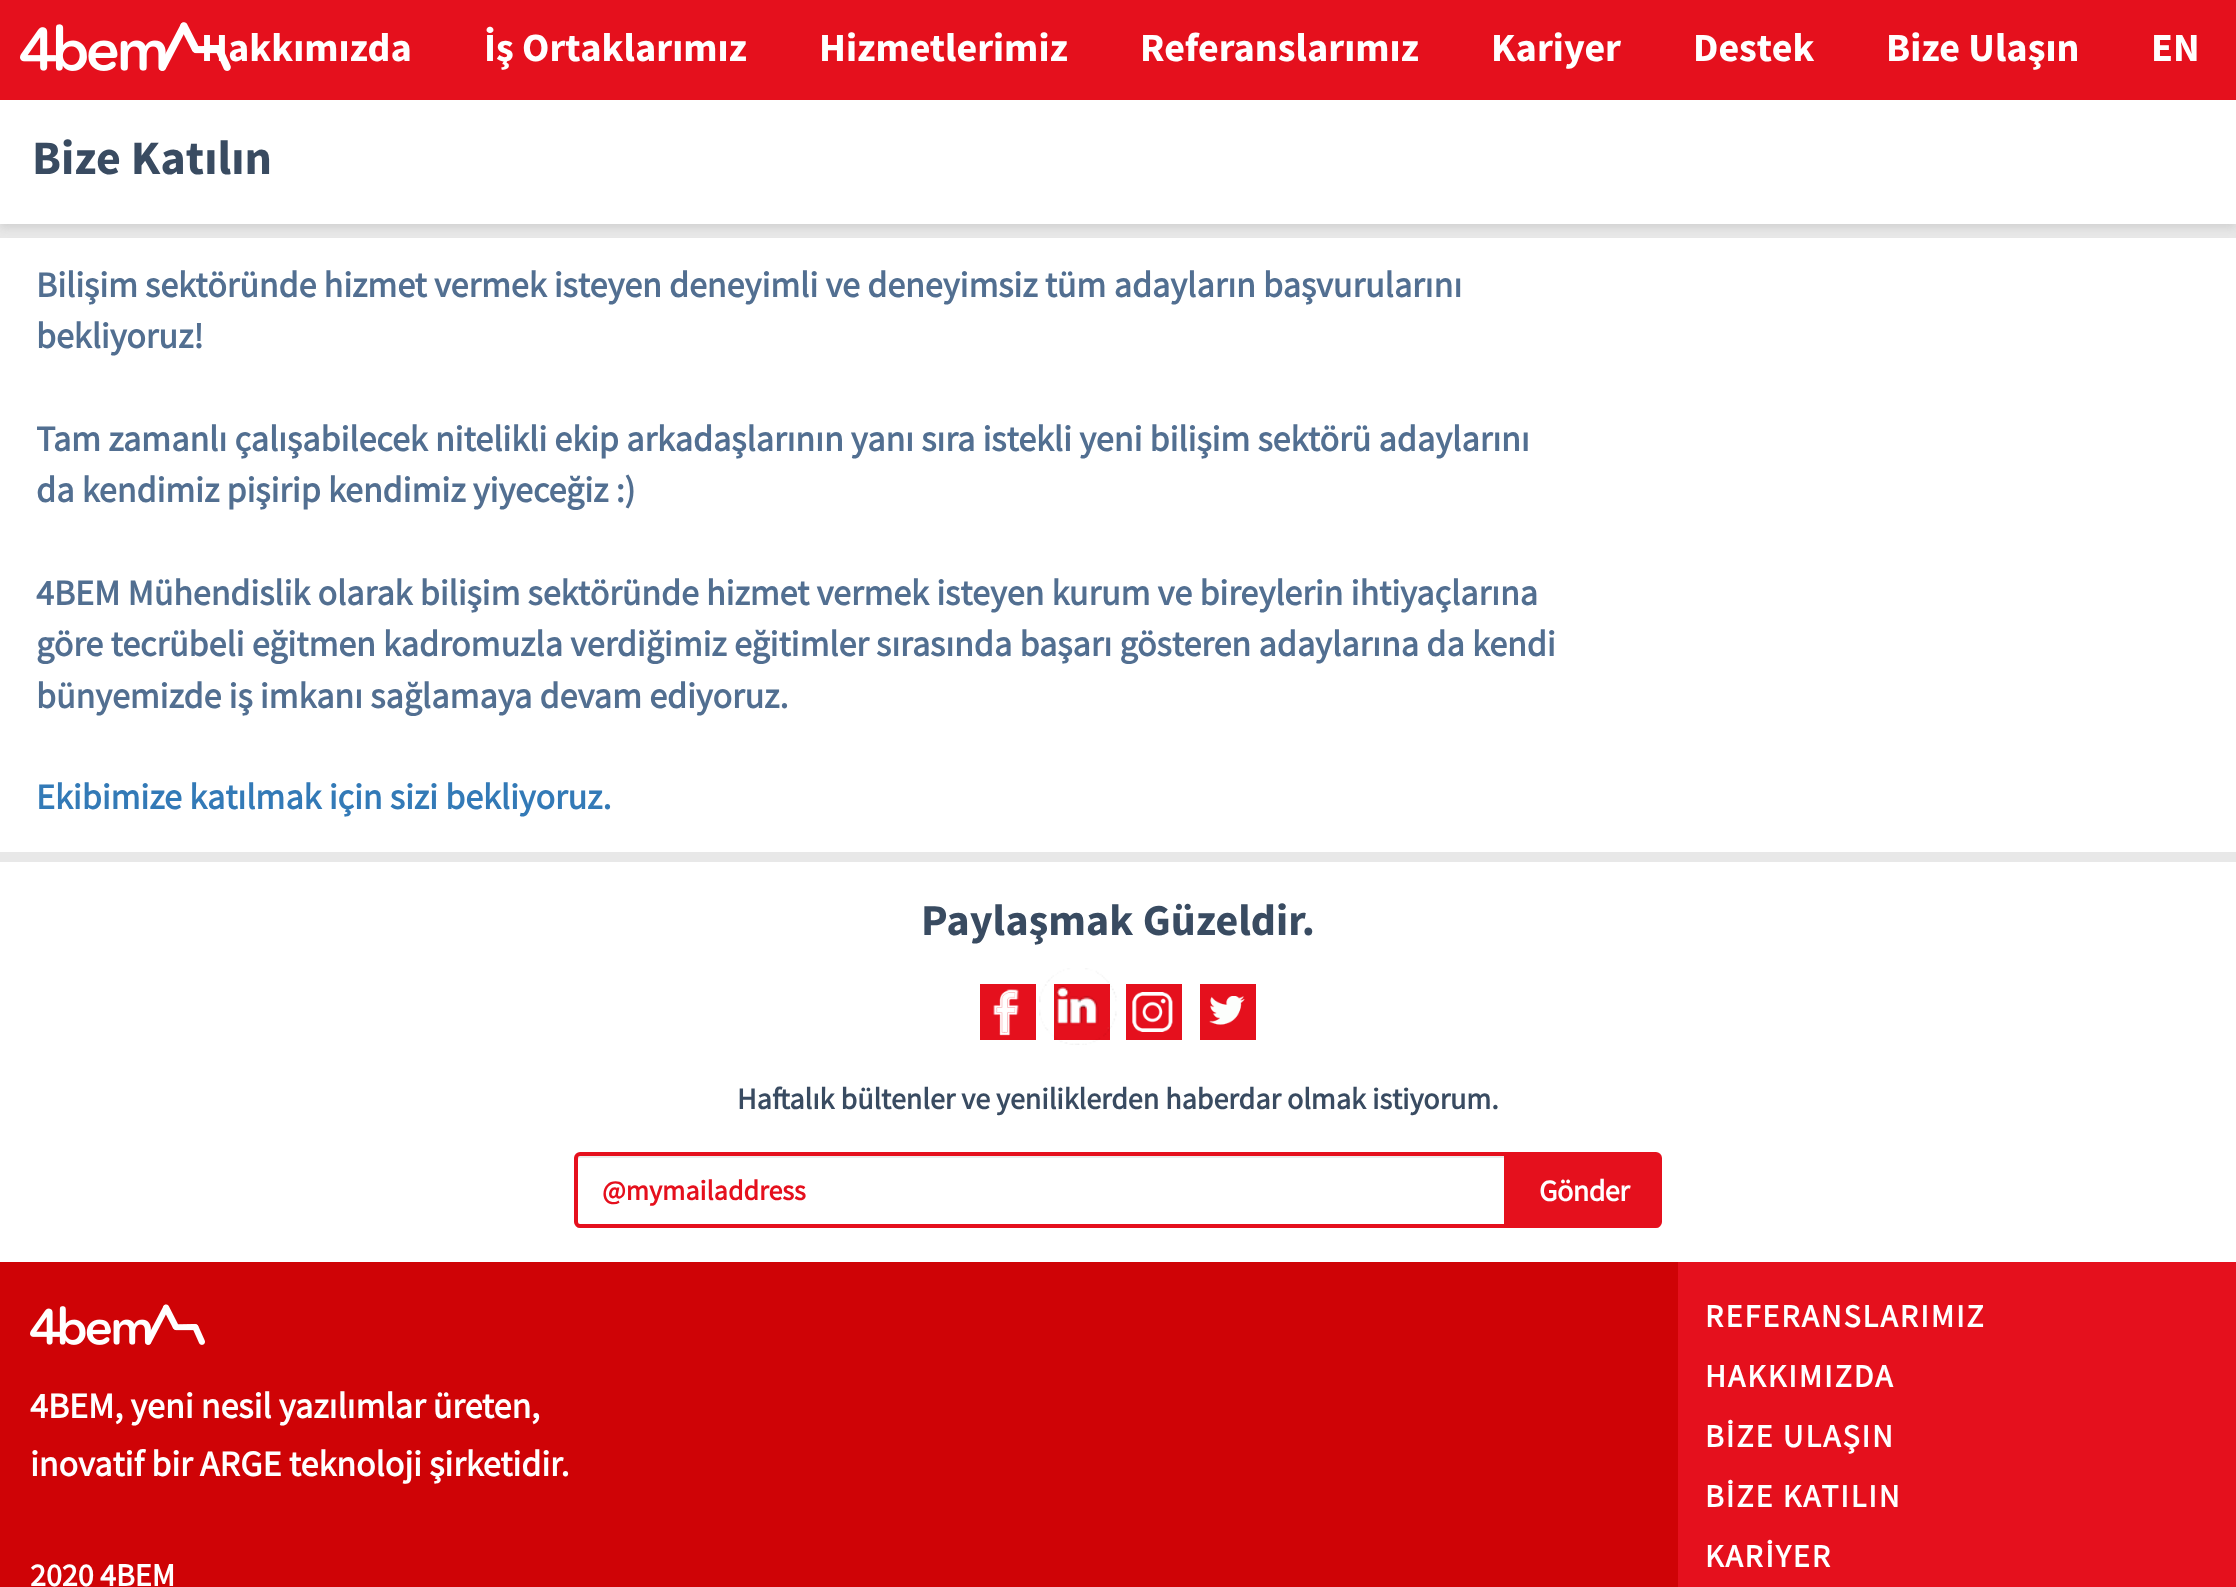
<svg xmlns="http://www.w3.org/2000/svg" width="2236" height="1587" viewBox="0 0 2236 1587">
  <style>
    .t1 { font: bold 40px Source Sans Pro; fill: #fff; }
    .t2 { font: bold 48px Source Sans Pro; fill: #394b61; }
    .t3 { font: bold 36px 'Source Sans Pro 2'; fill: #526f91; }
    .t4 { font: bold 36px 'Source Sans Pro 2'; fill: #337ab7; }
    .t5 { font: bold 44px Source Sans Pro; fill: #394b61; }
    .t6 { font: bold 30px 'Source Sans Pro 2'; fill: #394b61; }
    .t7 { font: bold 28px 'Source Sans Pro 2'; fill: #e5101d; }
    .t8 { font: bold 30px 'Source Sans Pro 2'; letter-spacing: -0.5px; fill: #fff; }
    .t9 { font: bold 36px 'Source Sans Pro 2'; fill: #fff; }
    .t10 { font: bold 32px 'Source Sans Pro 2'; fill: #fff; }
    .t11 { font: bold 32px 'Source Sans Pro 2'; letter-spacing: 2px; fill: #fff; }
  </style>
  <rect width="100%" height="100%" fill="#e8e8e8"/>
  <rect x="0" y="104" width="2236" height="124" fill="#9e9e9e4d" filter="blur(4px)"/>
  <rect x="0" y="0" width="2236" height="100" fill="#e5101d"/>
  <text x="201" y="61" class="t1">Hakkımızda</text>
  <image x="20" y="22" width="211" height="49" href="images/1.png"/>
  <text x="484" y="61" class="t1">İş Ortaklarımız</text>
  <text x="819" y="61" class="t1">Hizmetlerimiz</text>
  <text x="1140" y="61" class="t1">Referanslarımız</text>
  <text x="1491" y="61" class="t1">Kariyer</text>
  <text x="1693" y="61" class="t1">Destek</text>
  <text x="1886" y="61" class="t1">Bize Ulaşın</text>
  <text x="2151" y="61" class="t1">EN</text>
  <rect x="0" y="100" width="2236" height="124" fill="#fff"/>
  <text x="32" y="174" class="t2">Bize Katılın</text>
  <rect x="0" y="238" width="2236" height="614" fill="#fff"/>
  <text x="36" y="297" class="t3">Bilişim sektöründe hizmet vermek isteyen deneyimli ve deneyimsiz tüm adayların başvurularını</text>
  <text x="36" y="348" class="t3">bekliyoruz!</text>
  <text x="36" y="451" class="t3">Tam zamanlı çalışabilecek nitelikli ekip arkadaşlarının yanı sıra istekli yeni bilişim sektörü adaylarını</text>
  <text x="36" y="502" class="t3">da kendimiz pişirip kendimiz yiyeceğiz :)</text>
  <text x="36" y="605" class="t3">4BEM Mühendislik olarak bilişim sektöründe hizmet vermek isteyen kurum ve bireylerin ihtiyaçlarına</text>
  <text x="36" y="656" class="t3">göre tecrübeli eğitmen kadromuzla verdiğimiz eğitimler sırasında başarı gösteren adaylarına da kendi</text>
  <text x="36" y="708" class="t3">bünyemizde iş imkanı sağlamaya devam ediyoruz.</text>
  <text x="36" y="809" class="t4">Ekibimize katılmak için sizi bekliyoruz.</text>
  <rect x="0" y="862" width="2236" height="400" fill="#fff"/>
  <text x="921" y="935" class="t5">Paylaşmak Güzeldir.</text>
  <rect x="980" y="984" width="56" height="56" fill="#e5101d"/>
  <image x="993" y="989" width="26" height="47" href="images/2.png"/>
  <rect x="1054" y="984" width="56" height="56" fill="#e5101d"/>
  <image x="1039" y="968" width="78" height="77" href="images/3.png"/>
  <rect x="1126" y="984" width="56" height="56" fill="#e5101d"/>
  <image x="1132" y="992" width="41" height="40" href="images/4.png"/>
  <rect x="1200" y="984" width="56" height="56" fill="#e5101d"/>
  <image x="1209" y="996" width="36" height="29" href="images/5.png"/>
  <text x="737" y="1109" class="t6">Haftalık bültenler ve yeniliklerden haberdar olmak istiyorum.</text>
  <path d="M580 1158H1504V1156H580L578 1157V1160C578 1159 579 1158 580 1158Z" fill="#ececec"/>
  <path d="M580 1154H1506V1226H580C578 1226 576 1224 576 1222V1158C576 1156 578 1154 580 1154Z" fill="none" stroke="#e5101d" stroke-width="4"/>
  <text x="602" y="1200" class="t7">@mymailaddress</text>
  <path d="M1508 1154H1656C1658 1154 1660 1156 1660 1158V1222C1660 1224 1658 1226 1656 1226H1508Z" fill="#e5101d" stroke="#e5101d" stroke-width="4"/>
  <text x="1539" y="1201" class="t8">Gönder</text>
  <rect x="1678" y="1262" width="558" height="325" fill="#e5101d"/>
  <rect x="0" y="1262" width="1678" height="325" fill="#cf0306"/>
  <image x="30" y="1304" width="175" height="41" href="images/6.png"/>
  <text x="30" y="1418" class="t9">4BEM, yeni nesil yazılımlar üreten,</text>
  <text x="30" y="1476" class="t9">inovatif bir ARGE teknoloji şirketidir.</text>
  <text x="30" y="1586" class="t10">2020 4BEM</text>
  <text x="1705" y="1327" class="t11">REFERANSLARIMIZ</text>
  <text x="1705" y="1387" class="t11">HAKKIMIZDA</text>
  <text x="1705" y="1447" class="t11">BİZE ULAŞIN</text>
  <text x="1705" y="1507" class="t11">BİZE KATILIN</text>
  <text x="1705" y="1567" class="t11">KARİYER</text>
</svg>
